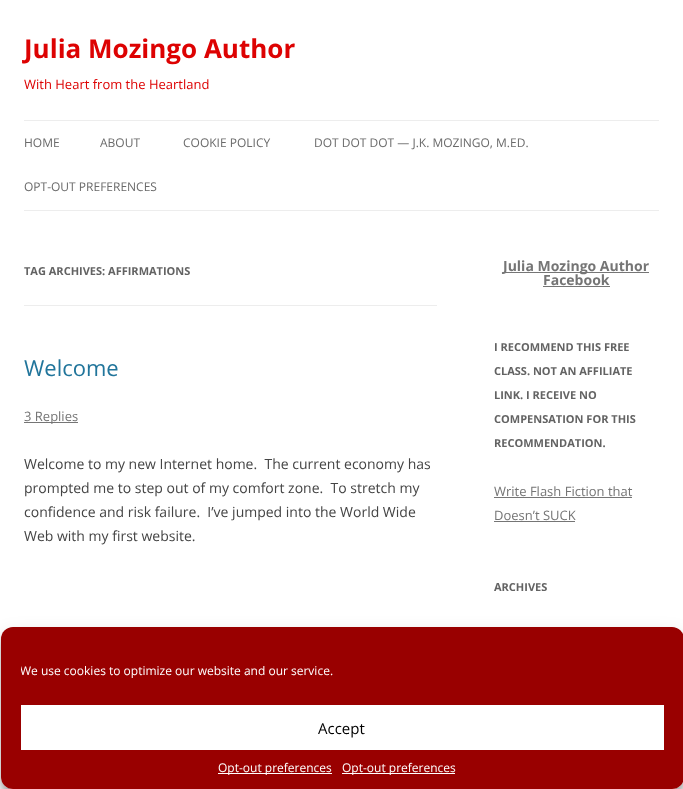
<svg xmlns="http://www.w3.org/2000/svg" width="683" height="789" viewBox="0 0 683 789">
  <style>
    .t1 { font: bold 26px Open Sans; fill: #dd0202; }
    .t2 { font: 13px Open Sans; fill: #dd0202; }
    .t3 { font: 12px Open Sans; fill: #6a6a6a; }
    .t4 { font: bold 11px Open Sans; fill: #636363; }
    .t5 { font: 22px Open Sans; fill: #21759b; }
    .t6 { font: 13px Open Sans; fill: #757575; }
    .t7 { font: 14px Open Sans; fill: #444; }
    .t8 { font: bold 14px Open Sans; fill: #757575; }
    .t9 { font: 12px Open Sans; fill: #fff; }
    .t10 { font: 15px Open Sans; fill: #000; }
  </style>
  <defs>
    <clipPath id="clip1"><path d="M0 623H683V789H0ZM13 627H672C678.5 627 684 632.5 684 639V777C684 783.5 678.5 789 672 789H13C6.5 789 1 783.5 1 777V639C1 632.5 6.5 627 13 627Z" clip-rule="evenodd"/></clipPath>
    <clipPath id="clip2"><path d="M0 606H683V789H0ZM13 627H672C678.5 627 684 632.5 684 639V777C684 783.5 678.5 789 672 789H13C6.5 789 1 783.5 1 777V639C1 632.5 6.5 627 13 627Z" clip-rule="evenodd"/></clipPath>
    <clipPath id="clip3"><rect x="21" y="662" width="643" height="23"/></clipPath>
  </defs>
  <rect width="100%" height="100%" fill="#fff"/>
  <text x="24" y="58" class="t1">Julia Mozingo Author</text>
  <text x="24" y="89" class="t2">With Heart from the Heartland</text>
  <rect x="24" y="120" width="635" height="1" fill="#ededed"/>
  <rect x="24" y="210" width="635" height="1" fill="#ededed"/>
  <text x="24" y="147" class="t3">HOME</text>
  <text x="100" y="147" class="t3">ABOUT</text>
  <text x="183" y="147" class="t3">COOKIE POLICY</text>
  <text x="314" y="147" class="t3">DOT DOT DOT — J.K. MOZINGO, M.ED.</text>
  <text x="24" y="191" class="t3">OPT-OUT PREFERENCES</text>
  <rect x="24" y="305" width="413" height="1" fill="#ededed"/>
  <text x="24" y="275" class="t4">TAG ARCHIVES: AFFIRMATIONS</text>
  <text x="24" y="376" class="t5">Welcome</text>
  <rect x="24" y="422" width="54" height="1" fill="#757575"/>
  <text x="24" y="421" class="t6">3 Replies</text>
  <text x="24" y="469" class="t7" xml:space="preserve">Welcome to my new Internet home.  The current economy has</text>
  <text x="24" y="493" class="t7" xml:space="preserve">prompted me to step out of my comfort zone.  To stretch my</text>
  <text x="24" y="517" class="t7" xml:space="preserve">confidence and risk failure.  I’ve jumped into the World Wide</text>
  <text x="24" y="541" class="t7">Web with my first website.</text>
  <rect x="503" y="272" width="146" height="1" fill="#757575"/>
  <text x="503" y="271" class="t8">Julia Mozingo Author</text>
  <text x="543" y="285" class="t8">Facebook</text>
  <rect x="543" y="286" width="67" height="1" fill="#757575"/>
  <text x="494" y="351" class="t4">I RECOMMEND THIS FREE</text>
  <text x="494" y="375" class="t4">CLASS. NOT AN AFFILIATE</text>
  <text x="494" y="399" class="t4">LINK. I RECEIVE NO</text>
  <text x="494" y="423" class="t4">COMPENSATION FOR THIS</text>
  <text x="494" y="447" class="t4">RECOMMENDATION.</text>
  <text x="494" y="496" class="t6">Write Flash Fiction that</text>
  <rect x="494" y="497" width="138" height="1" fill="#757575"/>
  <text x="494" y="520" class="t6">Doesn’t SUCK</text>
  <rect x="494" y="521" width="81" height="1" fill="#757575"/>
  <text x="494" y="591" class="t4">ARCHIVES</text>
  <g clip-path="url(#clip1)">
    <rect x="1" y="633" width="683" height="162" rx="12" fill="#0000003b" filter="blur(3px)"/>
  </g>
  <g clip-path="url(#clip2)">
    <rect x="1" y="637" width="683" height="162" rx="12" fill="#00000030" filter="blur(10px)"/>
  </g>
  <rect x="1" y="627" width="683" height="162" rx="12" fill="#900"/>
  <g clip-path="url(#clip3)">
    <text x="20" y="675" class="t9">We use cookies to optimize our website and our service.</text>
  </g>
  <rect x="21" y="705" width="643" height="45" fill="#fff"/>
  <text x="318" y="734" class="t10">Accept</text>
  <rect x="218" y="773" width="114" height="1" fill="#fff"/>
  <text x="218" y="772" class="t9">Opt-out preferences</text>
  <rect x="342" y="773" width="113" height="1" fill="#fff"/>
  <text x="342" y="772" class="t9">Opt-out preferences</text>
</svg>
